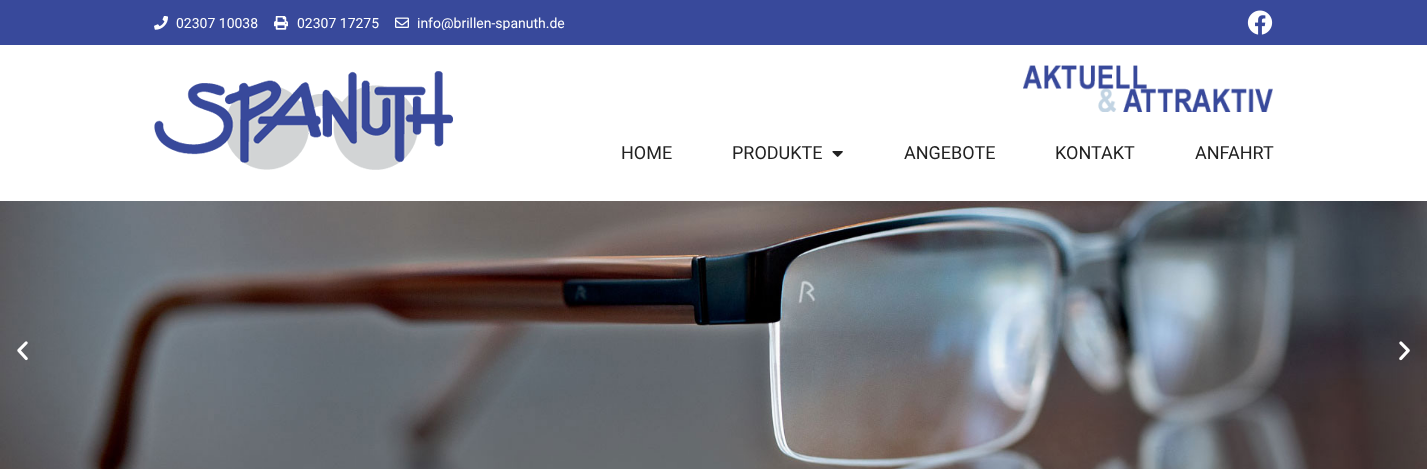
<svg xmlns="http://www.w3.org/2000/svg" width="1427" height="469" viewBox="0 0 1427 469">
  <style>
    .t1 { font: 14px Roboto; fill: #fff; }
    .t2 { font: 18px Roboto; fill: #222; }
  </style>
  <defs>
    <clipPath id="clip1"><rect x="154" y="16" width="730" height="14"/></clipPath>
  </defs>
  <rect width="100%" height="100%" fill="#fff"/>
  <rect x="0" y="0" width="1427" height="45" fill="#38499b"/>
  <image x="154" y="16" width="14" height="14" href="images/1.png"/>
  <text x="176" y="28" class="t1">02307 10038</text>
  <image x="274" y="16" width="14" height="14" href="images/2.png"/>
  <text x="297" y="28" class="t1">02307 17275</text>
  <image x="395" y="17" width="14" height="11" href="images/3.png"/>
  <g clip-path="url(#clip1)">
    <text x="417" y="28" class="t1">info@brillen-spanuth.de</text>
  </g>
  <image x="1247" y="10" width="26" height="25" href="images/4.png"/>
  <image x="154" y="71" width="299" height="99" href="images/5.png"/>
  <image x="1023" y="65" width="250" height="47" href="images/6.png"/>
  <text x="621" y="159" class="t2">HOME</text>
  <text x="732" y="159" class="t2">PRODUKTE</text>
  <image x="832" y="151" width="11" height="6" href="images/7.png"/>
  <text x="904" y="159" class="t2">ANGEBOTE</text>
  <text x="1055" y="159" class="t2">KONTAKT</text>
  <text x="1195" y="159" class="t2">ANFAHRT</text>
  <image x="0" y="201" width="1427" height="268" href="images/8.png"/>
  <image x="17" y="341" width="11" height="20" href="images/9.png"/>
  <image x="1399" y="341" width="11" height="20" href="images/10.png"/>
</svg>
